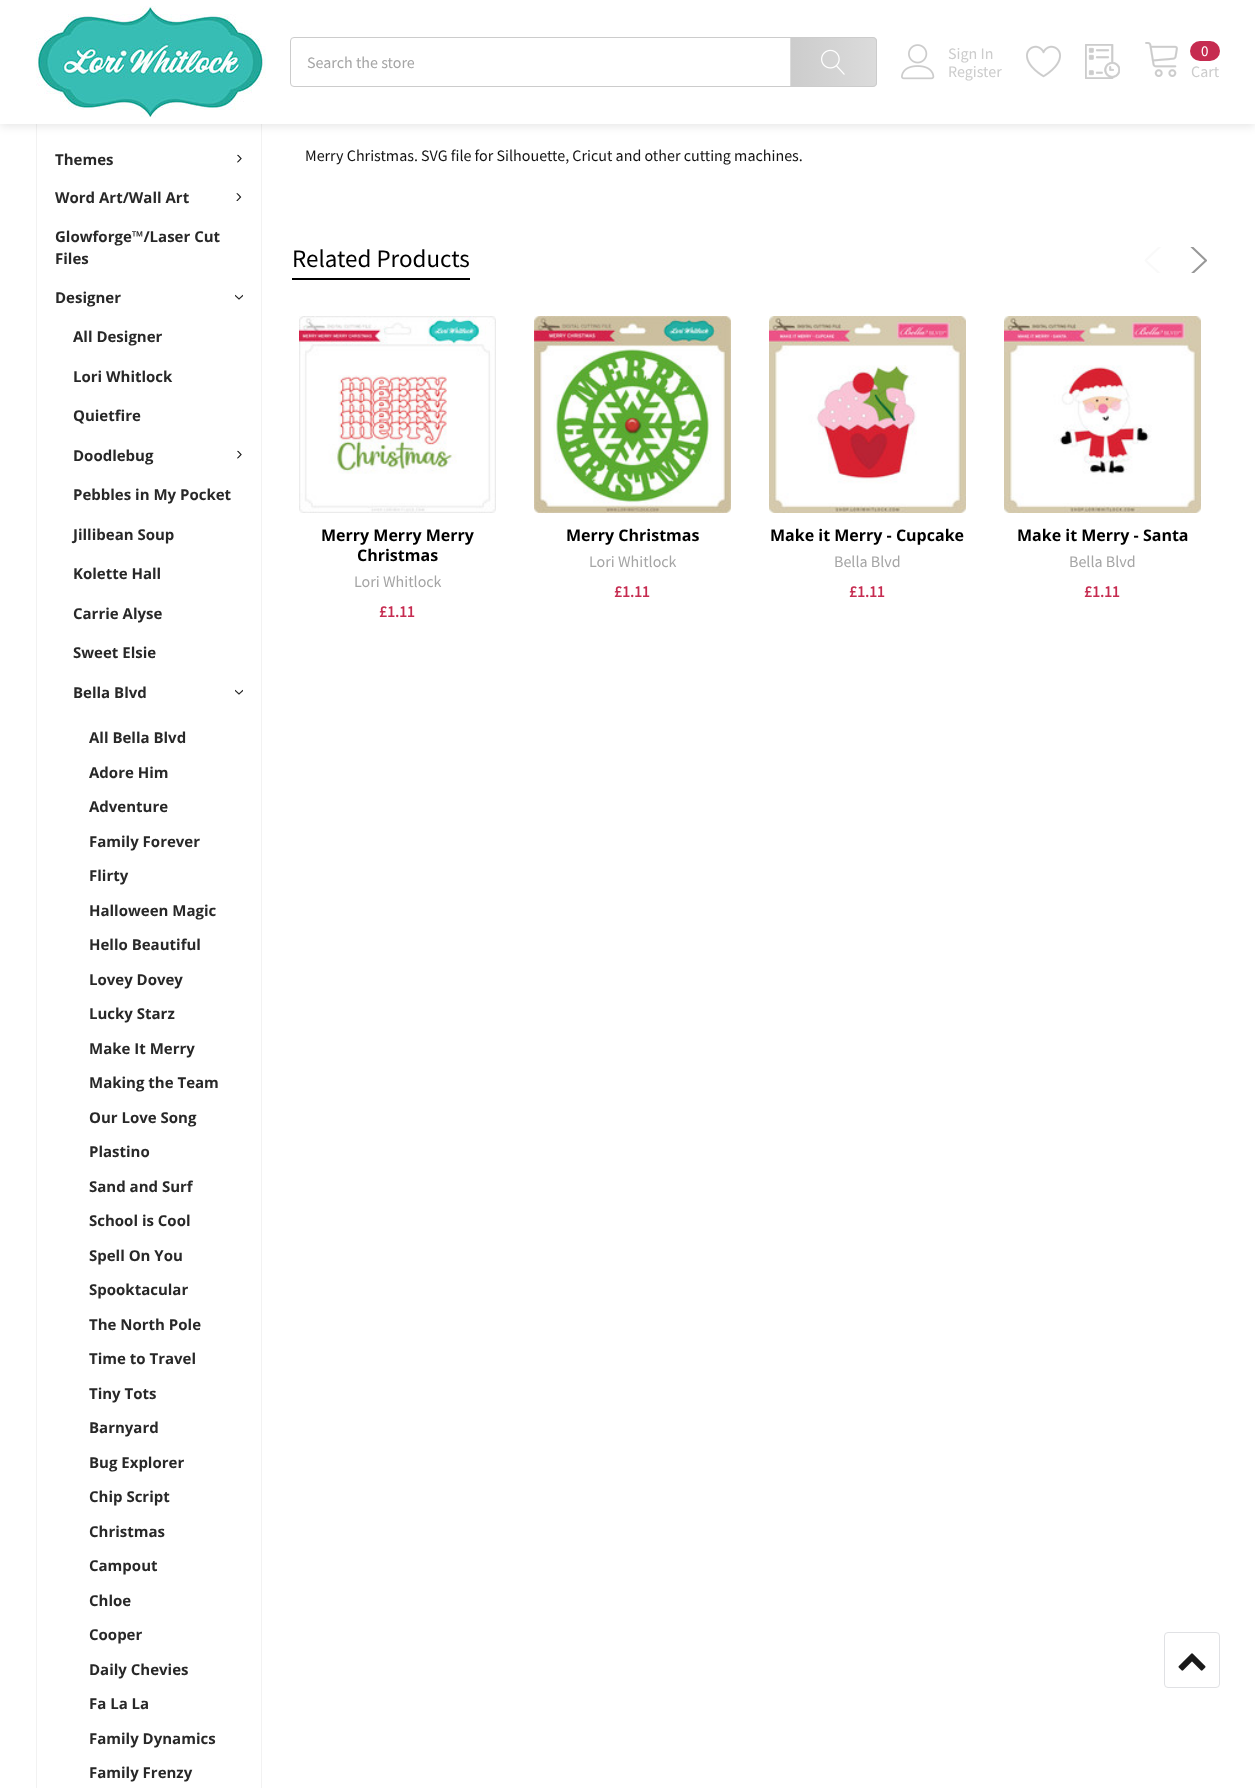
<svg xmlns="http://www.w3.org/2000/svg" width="1255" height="1788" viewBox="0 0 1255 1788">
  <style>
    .t1 { font: 16px Source Sans Pro; fill: #a5a5a5; }
    .t2 { font: 16px Source Sans Pro; fill: #ccc; }
    .t3 { font: 15px Source Sans Pro; fill: #fff; }
    .t4 { font: bold 15px Open Sans; fill: #282828; }
    .t5 { font: 16px Source Sans Pro; fill: #131313; }
    .t6 { font: 25px Source Sans Pro; fill: #000; }
    .t7 { font: bold 16px Open Sans; fill: #000; }
    .t8 { font: bold 16px Source Sans Pro; fill: #c62b50; }
  </style>
  <defs>
    <linearGradient id="g1" gradientUnits="userSpaceOnUse" x1="706" y1="62" x2="791" y2="62"><stop offset="0" stop-color="#ccc"/><stop offset="1" stop-color="#ccc" stop-opacity="0.7"/></linearGradient>
    <clipPath id="clip1"><path d="M790 37H873C875 37 877 39 877 41V83C877 85 875 87 873 87H790Z"/></clipPath>
    <linearGradient id="g2" gradientUnits="userSpaceOnUse" x1="791" y1="62" x2="876" y2="62"><stop offset="0" stop-color="#ccc"/><stop offset="1" stop-color="#ccc" stop-opacity="0.7"/></linearGradient>
    <linearGradient id="g3" gradientUnits="userSpaceOnUse" x1="876" y1="62" x2="961" y2="62"><stop offset="0" stop-color="#ccc"/><stop offset="1" stop-color="#ccc" stop-opacity="0.7"/></linearGradient>
    <clipPath id="clip2"><rect x="1144" y="247" width="26" height="26"/></clipPath>
    <clipPath id="clip3"><rect x="1182" y="247" width="25" height="26"/></clipPath>
  </defs>
  <rect width="100%" height="100%" fill="#fff"/>
  <path d="M36-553H262V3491C262 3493 260 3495 258 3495H40C38 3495 36 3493 36 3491ZM37-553H261V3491C261 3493 260 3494 258 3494H40C38 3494 37 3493 37 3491Z" fill="#f2f2f2" fill-rule="evenodd"/>
  <rect x="0" y="2" width="1255" height="124" fill="#0000001a" filter="blur(5px)"/>
  <rect x="0" y="0" width="1255" height="124" fill="#fff"/>
  <image x="36" y="6" width="230" height="112" href="images/1.png"/>
  <rect x="290.5" y="37.5" width="586" height="49" rx="3.5" fill="none" stroke="#ccc"/>
  <text x="307" y="68" class="t1">Search the store</text>
  <rect x="790" y="37" width="1" height="50" fill="url(#g1)"/>
  <g clip-path="url(#clip1)">
    <rect x="791" y="37" width="85" height="50" fill="url(#g2)"/>
    <rect x="876" y="37" width="1" height="50" fill="url(#g3)"/>
  </g>
  <image x="821" y="49" width="24" height="26" href="images/2.png"/>
  <image x="901" y="44" width="34" height="36" href="images/3.png"/>
  <text x="948" y="59" class="t2">Sign In</text>
  <text x="948" y="77" class="t2">Register</text>
  <image x="1026" y="45" width="35" height="33" href="images/4.png"/>
  <image x="1085" y="44" width="35" height="35" href="images/5.png"/>
  <image x="1145" y="42" width="33" height="35" href="images/6.png"/>
  <rect x="1190" y="41" width="30" height="20" rx="10" fill="#c62b50"/>
  <text x="1201" y="56" class="t3">0</text>
  <text x="1191" y="77" class="t2">Cart</text>
  <text x="55" y="165" class="t4">Themes</text>
  <image x="237" y="154" width="5" height="9" href="images/7.png"/>
  <text x="55" y="203" class="t4">Word Art/Wall Art</text>
  <image x="236" y="193" width="6" height="8" href="images/8.png"/>
  <text x="55" y="242" class="t4">Glowforge™/Laser Cut</text>
  <text x="55" y="264" class="t4">Files</text>
  <text x="55" y="303" class="t4">Designer</text>
  <image x="235" y="294" width="8" height="6" href="images/9.png"/>
  <text x="73" y="342" class="t4">All Designer</text>
  <text x="73" y="382" class="t4">Lori Whitlock</text>
  <text x="73" y="421" class="t4">Quietfire</text>
  <text x="73" y="461" class="t4">Doodlebug</text>
  <image x="237" y="450" width="5" height="9" href="images/7.png"/>
  <text x="73" y="500" class="t4">Pebbles in My Pocket</text>
  <text x="73" y="540" class="t4">Jillibean Soup</text>
  <text x="73" y="579" class="t4">Kolette Hall</text>
  <text x="73" y="619" class="t4">Carrie Alyse</text>
  <text x="73" y="658" class="t4">Sweet Elsie</text>
  <text x="73" y="698" class="t4">Bella Blvd</text>
  <image x="235" y="689" width="8" height="6" href="images/9.png"/>
  <text x="89" y="743" class="t4">All Bella Blvd</text>
  <text x="89" y="778" class="t4">Adore Him</text>
  <text x="89" y="812" class="t4">Adventure</text>
  <text x="89" y="847" class="t4">Family Forever</text>
  <text x="89" y="881" class="t4">Flirty</text>
  <text x="89" y="916" class="t4">Halloween Magic</text>
  <text x="89" y="950" class="t4">Hello Beautiful</text>
  <text x="89" y="985" class="t4">Lovey Dovey</text>
  <text x="89" y="1019" class="t4">Lucky Starz</text>
  <text x="89" y="1054" class="t4">Make It Merry</text>
  <text x="89" y="1088" class="t4">Making the Team</text>
  <text x="89" y="1123" class="t4">Our Love Song</text>
  <text x="89" y="1157" class="t4">Plastino</text>
  <text x="89" y="1192" class="t4">Sand and Surf</text>
  <text x="89" y="1226" class="t4">School is Cool</text>
  <text x="89" y="1261" class="t4">Spell On You</text>
  <text x="89" y="1295" class="t4">Spooktacular</text>
  <text x="89" y="1330" class="t4">The North Pole</text>
  <text x="89" y="1364" class="t4">Time to Travel</text>
  <text x="89" y="1399" class="t4">Tiny Tots</text>
  <text x="89" y="1433" class="t4">Barnyard</text>
  <text x="89" y="1468" class="t4">Bug Explorer</text>
  <text x="89" y="1502" class="t4">Chip Script</text>
  <text x="89" y="1537" class="t4">Christmas</text>
  <text x="89" y="1571" class="t4">Campout</text>
  <text x="89" y="1606" class="t4">Chloe</text>
  <text x="89" y="1640" class="t4">Cooper</text>
  <text x="89" y="1675" class="t4">Daily Chevies</text>
  <text x="89" y="1709" class="t4">Fa La La</text>
  <text x="89" y="1744" class="t4">Family Dynamics</text>
  <text x="89" y="1778" class="t4">Family Frenzy</text>
  <text x="305" y="161" class="t5">Merry Christmas. SVG file for Silhouette, Cricut and other cutting machines.</text>
  <rect x="292" y="278" width="178" height="2" fill="#000"/>
  <text x="292" y="267" class="t6">Related Products</text>
  <g clip-path="url(#clip2)">
    <path d="M1168 239L1145.5 260.5L1168 281.5" fill="none" stroke="#f9f9f9" stroke-width="2.1" stroke-linecap="round" stroke-linejoin="round"/>
  </g>
  <g clip-path="url(#clip3)">
    <path d="M1183.5 239L1206 260.5L1183.5 281.5" fill="none" stroke="#989898" stroke-width="2.1" stroke-linecap="round" stroke-linejoin="round"/>
  </g>
  <image x="299" y="316" width="197" height="197" href="images/10.png"/>
  <text x="321" y="541" class="t7">Merry Merry Merry</text>
  <text x="357" y="561" class="t7">Christmas</text>
  <text x="354" y="587" class="t1">Lori Whitlock</text>
  <text x="379" y="617" class="t8">£1.11</text>
  <image x="534" y="316" width="197" height="197" href="images/11.png"/>
  <text x="566" y="541" class="t7">Merry Christmas</text>
  <text x="589" y="567" class="t1">Lori Whitlock</text>
  <text x="614" y="597" class="t8">£1.11</text>
  <image x="769" y="316" width="197" height="197" href="images/12.png"/>
  <text x="770" y="541" class="t7">Make it Merry - Cupcake</text>
  <text x="834" y="567" class="t1">Bella Blvd</text>
  <text x="849" y="597" class="t8">£1.11</text>
  <image x="1004" y="316" width="197" height="197" href="images/13.png"/>
  <text x="1017" y="541" class="t7">Make it Merry - Santa</text>
  <text x="1069" y="567" class="t1">Bella Blvd</text>
  <text x="1084" y="597" class="t8">£1.11</text>
  <rect x="1164.5" y="1632.5" width="55" height="55" rx="3.5" fill="none" stroke="#e0e1e4"/>
  <image x="1178" y="1653" width="28" height="18" href="images/14.png"/>
</svg>
